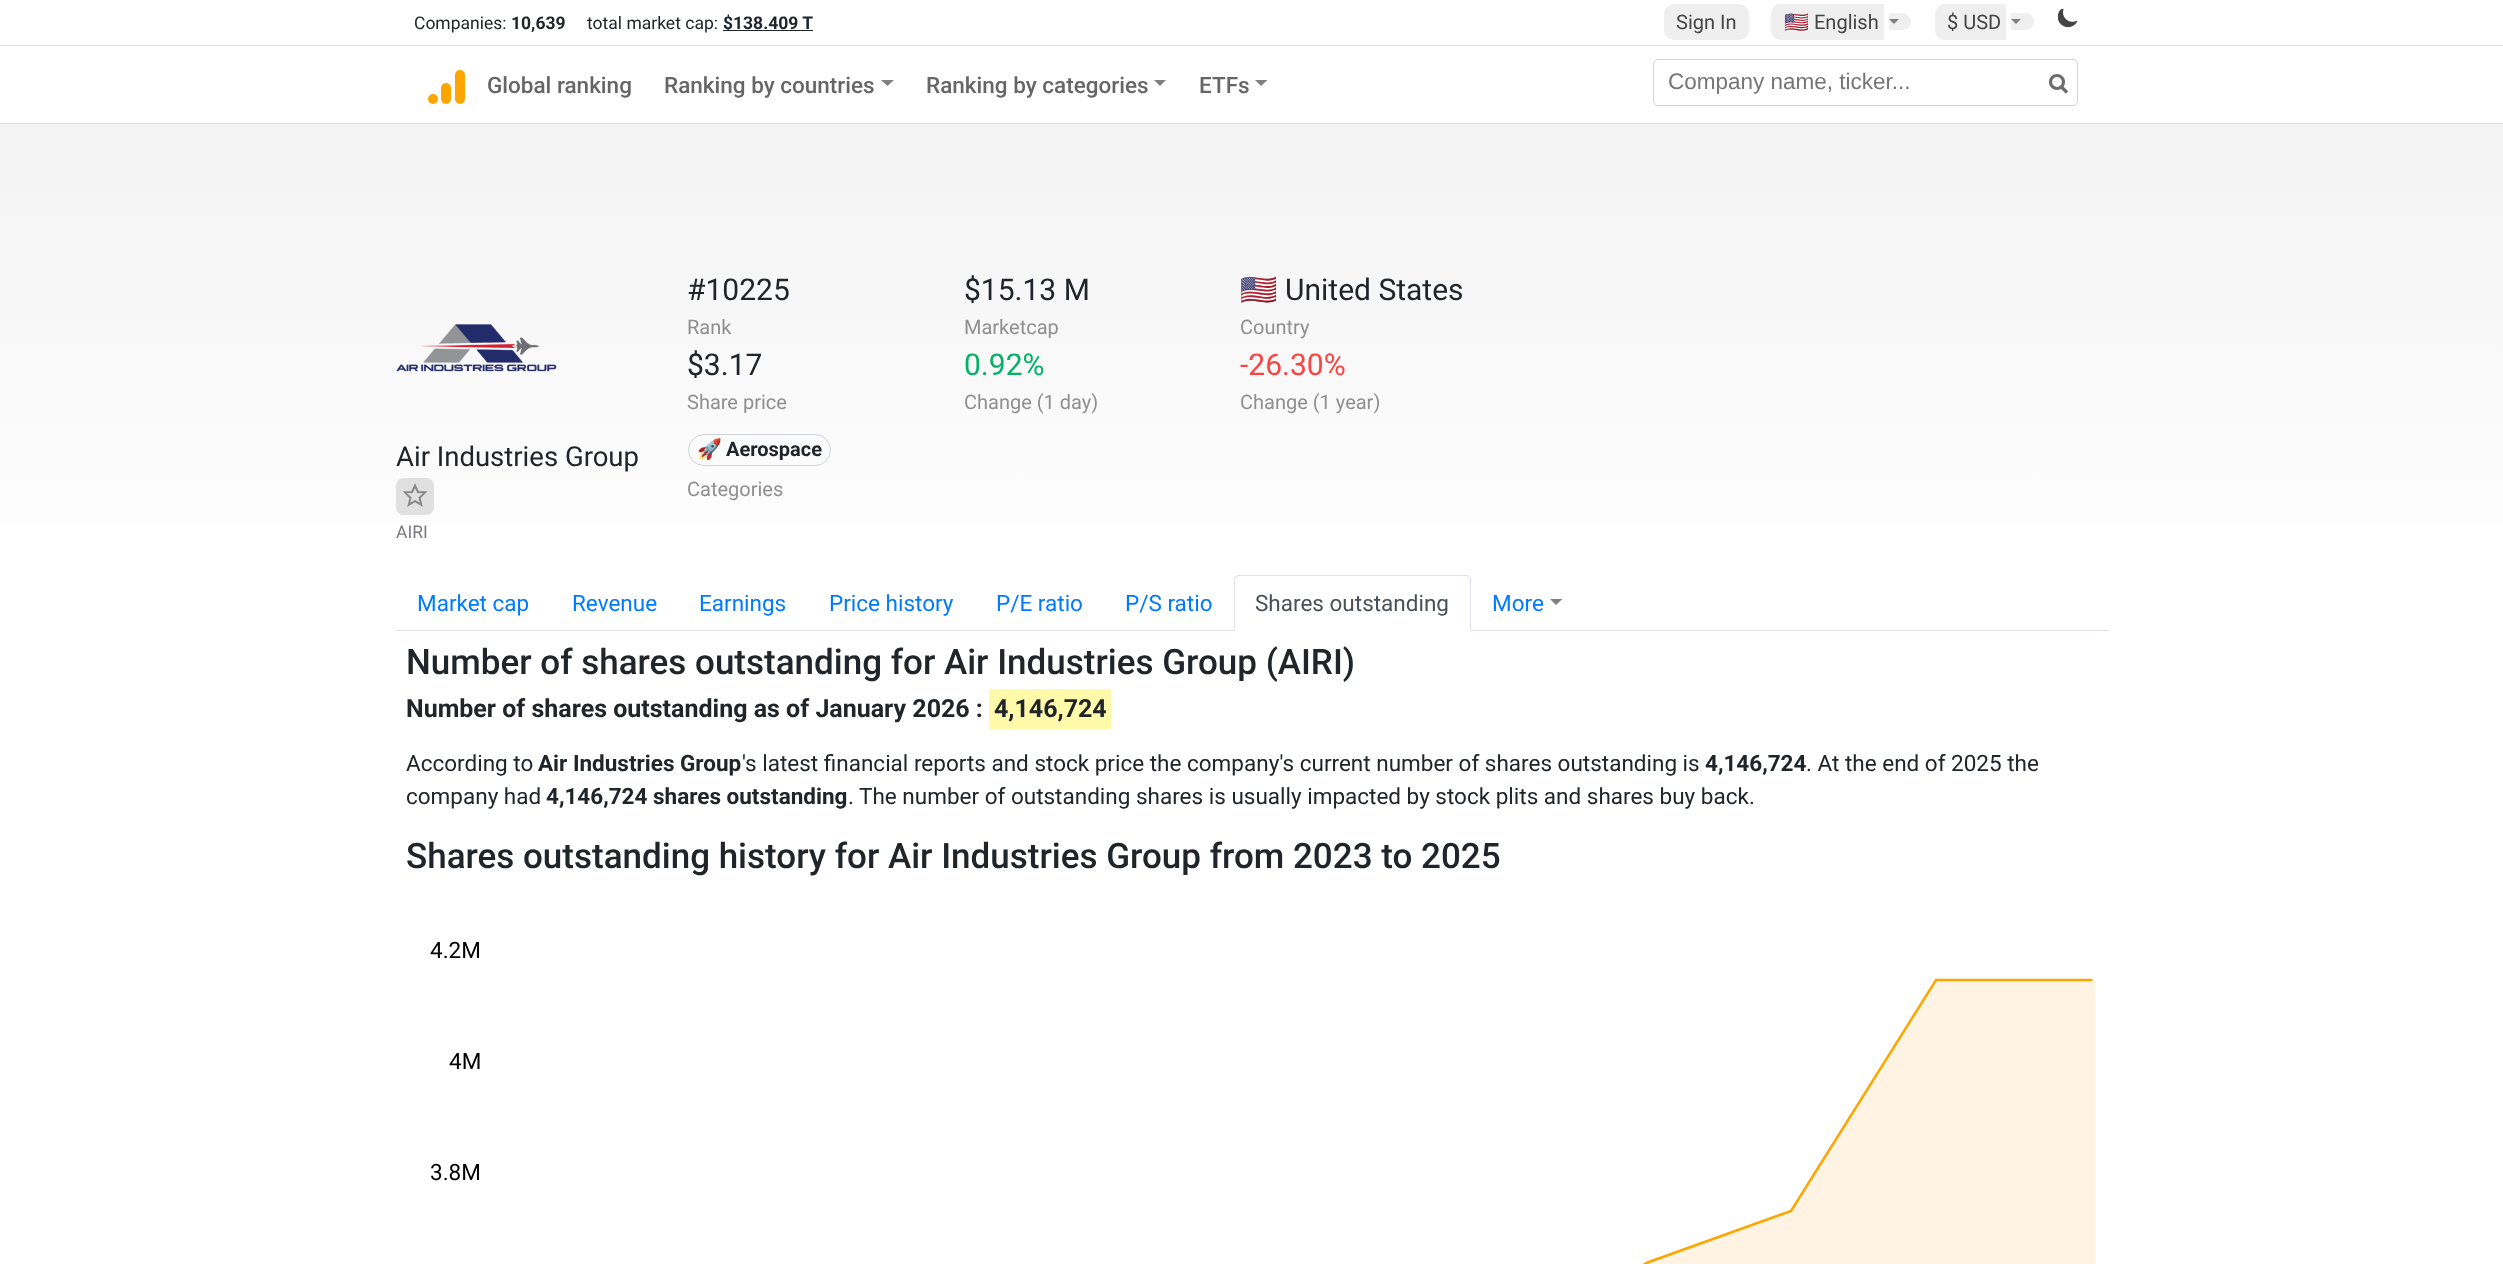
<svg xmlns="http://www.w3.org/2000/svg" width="2503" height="1264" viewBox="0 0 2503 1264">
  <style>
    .t1 { font: 17.5px Roboto; fill: #212529; }
    .t2 { font: bold 17.5px Roboto; fill: #212529; }
    .t3 { font: 20px Roboto; fill: #444; }
    .t4 { font: 20px Noto Color Emoji; fill: #444; }
    .t5 { font: 500 22.5px Roboto; fill: #666; }
    .t6 { font: 22.5px Liberation Sans; fill: #757575; }
    .t7 { font: 27.5px Roboto; fill: #212529; }
    .t8 { font: 17.5px Roboto; fill: #797b7e; }
    .t9 { font: 30px Roboto; fill: #212529; }
    .t10 { font: 20px Roboto; fill: #8f8f8f; }
    .t11 { font: 30px Noto Color Emoji; fill: #212529; }
    .t12 { font: 30px Roboto; fill: #05b169; }
    .t13 { font: 30px Roboto; fill: #fa4444; }
    .t14 { font: bold 20px Noto Color Emoji; fill: #212529; }
    .t15 { font: bold 20px Roboto; fill: #212529; }
    .t16 { font: 22.5px Roboto; fill: #007bff; }
    .t17 { font: 22.5px Roboto; fill: #495057; }
    .t18 { font: 500 35px Roboto; fill: #212529; }
    .t19 { font: bold 25px Roboto; fill: #212529; }
    .t20 { font: 22.5px Roboto; fill: #212529; }
    .t21 { font: bold 22.5px Roboto; fill: #212529; }
    .t22 { font: 22.5px Roboto; fill: #000; }
  </style>
  <defs>
    <linearGradient id="g1" gradientUnits="userSpaceOnUse" x1="1252" y1="625" x2="1252" y2="0"><stop offset="0" stop-color="#fff"/><stop offset="1" stop-color="#f0f0f0"/></linearGradient>
  </defs>
  <rect width="100%" height="100%" fill="#fff"/>
  <rect x="0" y="124" width="2503" height="397" fill="url(#g1)"/>
  <text x="414" y="29" class="t1">Companies:</text>
  <text x="511" y="29" class="t2">10,639</text>
  <text x="587" y="29" class="t1">total market cap:</text>
  <rect x="723" y="30" width="90" height="1" fill="#212529"/>
  <text x="723" y="29" class="t2">$138.409 T</text>
  <rect x="1664" y="4" width="85" height="36" rx="10" fill="#efefef"/>
  <text x="1676" y="29" class="t3">Sign In</text>
  <path d="M1781 4H1814V40H1781C1775.5 40 1771 35.5 1771 30V14C1771 8.5 1775.5 4 1781 4Z" fill="#efefef"/>
  <rect x="1814" y="4" width="70" height="36" fill="#efefef"/>
  <path d="M1889 13H1902.5C1907 13 1911 17 1911 21.5C1911 26 1907 30 1902.5 30H1889Z" fill="#efefef"/>
  <text x="1784" y="29" class="t4">🇺🇸</text>
  <text x="1814" y="29" class="t3">English</text>
  <path d="M1889 19H1899L1894 24Z" fill="#808080"/>
  <path d="M1945 4H2006V40H1945C1939.5 40 1935 35.5 1935 30V14C1935 8.5 1939.5 4 1945 4Z" fill="#efefef"/>
  <path d="M2011 13H2025.5C2030 13 2034 17 2034 21.5C2034 26 2030 30 2025.5 30H2011Z" fill="#efefef"/>
  <text x="1947" y="29" class="t3">$ USD</text>
  <path d="M2011 19H2021L2016 24Z" fill="#808080"/>
  <image x="2058" y="9" width="20" height="19" href="images/1.png"/>
  <rect x="0" y="45" width="2503" height="1" fill="#dee2e6"/>
  <rect x="0" y="123" width="2503" height="1" fill="#dee2e6"/>
  <circle cx="433" cy="99" r="5" fill="#ffa500"/>
  <rect x="441" y="83" width="10" height="21" rx="5" fill="#ffa500"/>
  <rect x="455" y="70" width="10" height="34" rx="5" fill="#ffa500"/>
  <text x="487" y="93" class="t5">Global ranking</text>
  <text x="664" y="93" class="t5">Ranking by countries</text>
  <path d="M881 80H894L887.5 86Z" fill="#808080"/>
  <text x="926" y="93" class="t5">Ranking by categories</text>
  <path d="M1154 80H1166L1160 86Z" fill="#808080"/>
  <text x="1199" y="93" class="t5">ETFs</text>
  <path d="M1255 80H1267.5L1261 86Z" fill="#808080"/>
  <rect x="1653.5" y="59.5" width="424" height="46" rx="4.5" fill="none" stroke="#ced4da"/>
  <text x="1668" y="89" class="t6">Company name, ticker...</text>
  <path d="M2067 92.5L2060.5 86" fill="none" stroke="#6c6c6c" stroke-width="3.2"/>
  <circle cx="2057" cy="82" r="6.5" fill="none" stroke="#6c6c6c" stroke-width="3.2"/>
  <image x="396" y="324" width="161" height="48" href="images/2.png"/>
  <text x="396" y="466" class="t7">Air Industries Group</text>
  <rect x="396" y="478" width="38" height="37" rx="8" fill="#e0e0e0"/>
  <image x="403" y="483" width="25" height="24" href="images/3.png"/>
  <text x="396" y="538" class="t8">AIRI</text>
  <text x="687" y="300" class="t9">#10225</text>
  <text x="687" y="334" class="t10">Rank</text>
  <text x="964" y="300" class="t9">$15.13 M</text>
  <text x="964" y="334" class="t10">Marketcap</text>
  <text x="1240" y="300" class="t11">🇺🇸</text>
  <text x="1285" y="300" class="t9">United States</text>
  <text x="1240" y="334" class="t10">Country</text>
  <text x="687" y="375" class="t9">$3.17</text>
  <text x="687" y="409" class="t10">Share price</text>
  <text x="964" y="375" class="t12">0.92%</text>
  <text x="964" y="409" class="t10">Change (1 day)</text>
  <text x="1240" y="375" class="t13">-26.30%</text>
  <text x="1240" y="409" class="t10">Change (1 year)</text>
  <rect x="688.5" y="434.5" width="142" height="31" rx="15.5" fill="none" stroke="#ced4da"/>
  <text x="697" y="456" class="t14">🚀</text>
  <text x="726" y="456" class="t15">Aerospace</text>
  <text x="687" y="496" class="t10">Categories</text>
  <rect x="396" y="630" width="1713" height="1" fill="#dee2e6"/>
  <text x="417" y="611" class="t16">Market cap</text>
  <text x="572" y="611" class="t16">Revenue</text>
  <text x="699" y="611" class="t16">Earnings</text>
  <text x="829" y="611" class="t16">Price history</text>
  <text x="996" y="611" class="t16">P/E ratio</text>
  <text x="1125" y="611" class="t16">P/S ratio</text>
  <path d="M1239 575H1466C1469 575 1471 577 1471 580V631H1234V580C1234 577 1236 575 1239 575Z" fill="#fff"/>
  <path d="M1239 575C1237 575 1236 576 1235 577H1236C1237 577 1238 576 1239 576H1466C1467 576 1468 577 1469 577H1470C1469 576 1468 575 1466 575Z" fill="#dee2e6"/>
  <path d="M1470 577C1471 577 1471 579 1471 580V631L1470 630V580C1470 579 1470 578 1469 577Z" fill="#dee2e6"/>
  <path d="M1471 631L1470 630H1235L1234 631Z" fill="#fff"/>
  <path d="M1235 577C1234 577 1234 579 1234 580V631L1235 630V580C1235 579 1235 578 1236 577Z" fill="#dee2e6"/>
  <text x="1255" y="611" class="t17">Shares outstanding</text>
  <text x="1492" y="611" class="t16">More</text>
  <path d="M1550 599H1562.5L1556 605Z" fill="#808080"/>
  <text x="406" y="674" class="t18">Number of shares outstanding for Air Industries Group (AIRI)</text>
  <text x="406" y="717" class="t19">Number of shares outstanding as of January 2026 :</text>
  <rect x="989" y="689" width="122" height="40" fill="#fffaaa"/>
  <text x="994" y="717" class="t19">4,146,724</text>
  <text x="406" y="771" class="t20">According to</text>
  <text x="538" y="771" class="t21">Air Industries Group</text>
  <text x="742" y="771" class="t20">'s latest financial reports and stock price the company's current number of shares outstanding is</text>
  <text x="1705" y="771" class="t21">4,146,724</text>
  <text x="1806" y="771" class="t20">. At the end of 2025 the</text>
  <text x="406" y="804" class="t20">company had</text>
  <text x="546" y="804" class="t21">4,146,724 shares outstanding</text>
  <text x="848" y="804" class="t20">.</text>
  <text x="859" y="804" class="t20">The number of outstanding shares is usually impacted by stock plits and shares buy back.</text>
  <text x="406" y="868" class="t18">Shares outstanding history for Air Industries Group from 2023 to 2025</text>
  <text x="430" y="958" class="t22">4.2M</text>
  <text x="449" y="1069" class="t22">4M</text>
  <text x="430" y="1180" class="t22">3.8M</text>
  <path d="M491 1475L638 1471L782 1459L1071 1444L1215 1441L1360 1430L1648 1262L1791 1211L1936 980H2095V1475" fill="#fff4e4"/>
  <path d="M494 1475L637.5 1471L782.5 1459L1071 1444L1215 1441L1360 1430L1647.5 1262.5L1791 1211L1936 980H2092.5" fill="none" stroke="#ffa500" stroke-width="2.5"/>
</svg>
